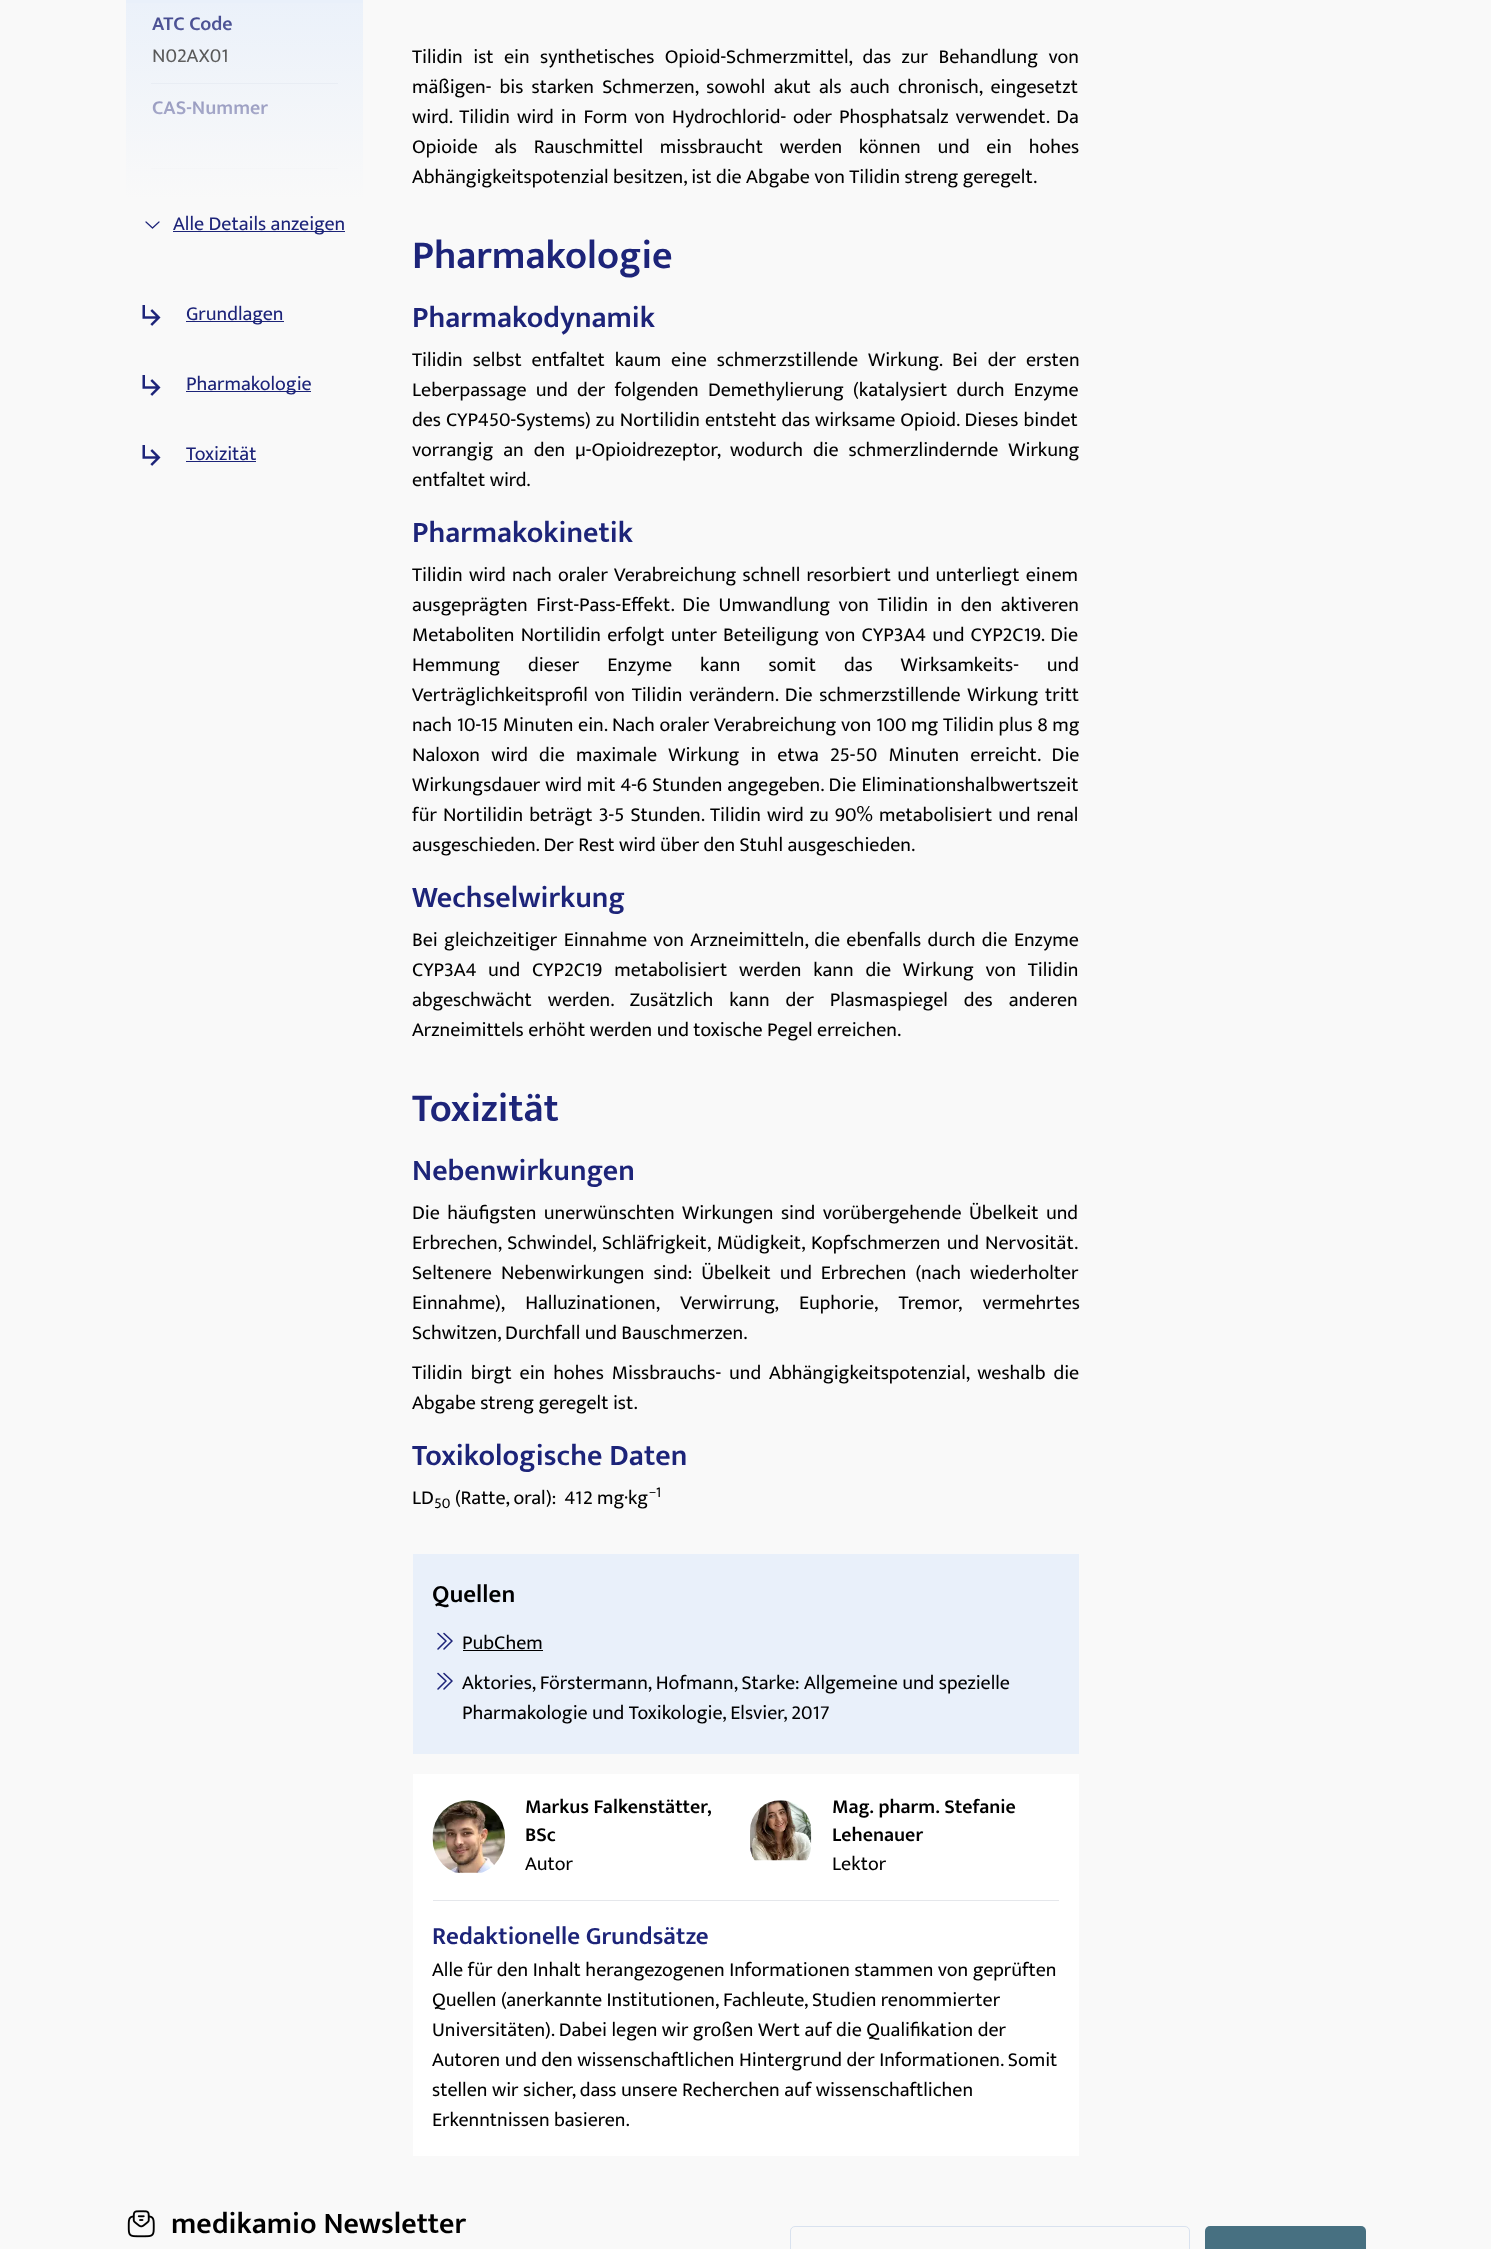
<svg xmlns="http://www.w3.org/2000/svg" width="1491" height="2249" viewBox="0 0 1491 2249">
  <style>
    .t1 { font: 600 20px Mukta; fill: #1d2479; }
    .t2 { font: 20px Mukta; fill: #000; }
    .t3 { font: 20px Mukta; fill: #1d2479; }
    .t4 { font: 600 40px Mukta; fill: #1d2479; }
    .t5 { font: 600 30px Mukta; fill: #1d2479; }
    .t6 { font: 15px Mukta; fill: #000; }
    .t7 { font: 600 25px Mukta; fill: #000; }
    .t8 { font: 600 20px Mukta; fill: #000; }
    .t9 { font: 600 25px Mukta; fill: #1d2479; }
    .t10 { font: 600 30px Mukta; fill: #000; }
  </style>
  <defs>
    <linearGradient id="g1" gradientUnits="userSpaceOnUse" x1="244" y1="-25" x2="244" y2="200"><stop offset="0" stop-color="#f9f9f9" stop-opacity="0"/><stop offset="1" stop-color="#f9f9f9"/></linearGradient>
  </defs>
  <rect width="100%" height="100%" fill="#f9f9f9"/>
  <rect x="126" y="-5" width="237" height="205" rx="5" fill="#e9f0fa"/>
  <rect x="151" y="83" width="187" height="1" fill="#d9e2ef"/>
  <text x="152" y="30" class="t1">ATC Code</text>
  <text x="152" y="62" class="t2">N02AX01</text>
  <rect x="151" y="168" width="187" height="1" fill="#d9e2ef"/>
  <text x="152" y="114" class="t1">CAS-Nummer</text>
  <rect x="126" y="3" width="237" height="197" fill="url(#g1)"/>
  <path d="M159 222L152.5 228L146 222" fill="none" stroke="#1d2479" stroke-width="1.2" stroke-linecap="round" stroke-linejoin="round"/>
  <rect x="173" y="231" width="172" height="1" fill="#1d2479"/>
  <text x="173" y="230" class="t3">Alle Details anzeigen</text>
  <image x="142" y="305" width="19" height="21" href="images/1.png"/>
  <rect x="186" y="321" width="98" height="1" fill="#1d2479"/>
  <text x="186" y="320" class="t3">Grundlagen</text>
  <image x="142" y="375" width="19" height="21" href="images/1.png"/>
  <rect x="186" y="391" width="125" height="1" fill="#1d2479"/>
  <text x="186" y="390" class="t3">Pharmakologie</text>
  <image x="142" y="445" width="19" height="21" href="images/1.png"/>
  <text x="186" y="460" class="t3">Toxizität</text>
  <rect x="186" y="461" width="70" height="1" fill="#1d2479"/>
  <text x="412" y="63" word-spacing="6" class="t2">Tilidin ist ein synthetisches Opioid-Schmerzmittel, das zur Behandlung von</text>
  <text x="412" y="93" word-spacing="3.75" class="t2">mäßigen- bis starken Schmerzen, sowohl akut als auch chronisch, eingesetzt</text>
  <text x="412" y="123" word-spacing="2.6" class="t2">wird. Tilidin wird in Form von Hydrochlorid- oder Phosphatsalz verwendet. Da</text>
  <text x="412" y="153" word-spacing="12.25" class="t2">Opioide als Rauschmittel missbraucht werden können und ein hohes</text>
  <text x="412" y="183" class="t2">Abhängigkeitspotenzial besitzen, ist die Abgabe von Tilidin streng geregelt.</text>
  <text x="412" y="268" class="t4">Pharmakologie</text>
  <text x="412" y="327" class="t5">Pharmakodynamik</text>
  <text x="412" y="366" word-spacing="5.5" class="t2">Tilidin selbst entfaltet kaum eine schmerzstillende Wirkung. Bei der ersten</text>
  <text x="412" y="396" word-spacing="4.75" class="t2">Leberpassage und der folgenden Demethylierung (katalysiert durch Enzyme</text>
  <text x="412" y="426" word-spacing="0.5" class="t2">des CYP450-Systems) zu Nortilidin entsteht das wirksame Opioid. Dieses bindet</text>
  <text x="412" y="456" word-spacing="5.5" class="t2">vorrangig an den µ-Opioidrezeptor, wodurch die schmerzlindernde Wirkung</text>
  <text x="412" y="486" class="t2">entfaltet wird.</text>
  <text x="412" y="542" class="t5">Pharmakokinetik</text>
  <text x="412" y="581" word-spacing="1.75" class="t2">Tilidin wird nach oraler Verabreichung schnell resorbiert und unterliegt einem</text>
  <text x="412" y="611" word-spacing="4" class="t2">ausgeprägten First-Pass-Effekt. Die Umwandlung von Tilidin in den aktiveren</text>
  <text x="412" y="641" word-spacing="1.75" class="t2">Metaboliten Nortilidin erfolgt unter Beteiligung von CYP3A4 und CYP2C19. Die</text>
  <text x="412" y="671" word-spacing="23.5" class="t2">Hemmung dieser Enzyme kann somit das Wirksamkeits- und</text>
  <text x="412" y="701" word-spacing="2.25" class="t2">Verträglichkeitsprofil von Tilidin verändern. Die schmerzstillende Wirkung tritt</text>
  <text x="412" y="731" word-spacing="0.25" class="t2">nach 10-15 Minuten ein. Nach oraler Verabreichung von 100 mg Tilidin plus 8 mg</text>
  <text x="412" y="761" word-spacing="6.75" class="t2">Naloxon wird die maximale Wirkung in etwa 25-50 Minuten erreicht. Die</text>
  <text x="412" y="791" word-spacing="0.5" class="t2">Wirkungsdauer wird mit 4-6 Stunden angegeben. Die Eliminationshalbwertszeit</text>
  <text x="412" y="821" word-spacing="1.6" class="t2">für Nortilidin beträgt 3-5 Stunden. Tilidin wird zu 90% metabolisiert und renal</text>
  <text x="412" y="851" class="t2">ausgeschieden. Der Rest wird über den Stuhl ausgeschieden.</text>
  <text x="412" y="907" class="t5">Wechselwirkung</text>
  <text x="412" y="946" word-spacing="1.9" class="t2">Bei gleichzeitiger Einnahme von Arzneimitteln, die ebenfalls durch die Enzyme</text>
  <text x="412" y="976" word-spacing="7.25" class="t2">CYP3A4 und CYP2C19 metabolisiert werden kann die Wirkung von Tilidin</text>
  <text x="412" y="1006" word-spacing="11.5" class="t2">abgeschwächt werden. Zusätzlich kann der Plasmaspiegel des anderen</text>
  <text x="412" y="1036" class="t2">Arzneimittels erhöht werden und toxische Pegel erreichen.</text>
  <text x="412" y="1121" class="t4">Toxizität</text>
  <text x="412" y="1180" class="t5">Nebenwirkungen</text>
  <text x="412" y="1219" word-spacing="3" class="t2">Die häufigsten unerwünschten Wirkungen sind vorübergehende Übelkeit und</text>
  <text x="412" y="1249" word-spacing="1.75" class="t2">Erbrechen, Schwindel, Schläfrigkeit, Müdigkeit, Kopfschmerzen und Nervosität.</text>
  <text x="412" y="1279" word-spacing="4.5" class="t2">Seltenere Nebenwirkungen sind: Übelkeit und Erbrechen (nach wiederholter</text>
  <text x="412" y="1309" word-spacing="16.5" class="t2">Einnahme), Halluzinationen, Verwirrung, Euphorie, Tremor, vermehrtes</text>
  <text x="412" y="1339" class="t2">Schwitzen, Durchfall und Bauschmerzen.</text>
  <text x="412" y="1379" word-spacing="3.5" class="t2">Tilidin birgt ein hohes Missbrauchs- und Abhängigkeitspotenzial, weshalb die</text>
  <text x="412" y="1409" class="t2">Abgabe streng geregelt ist.</text>
  <text x="412" y="1465" class="t5">Toxikologische Daten</text>
  <text x="412" y="1504" class="t2">LD</text>
  <text x="434" y="1508" class="t6">50</text>
  <text x="455" y="1504" class="t2" xml:space="preserve">(Ratte, oral):  412 mg·kg</text>
  <text x="649" y="1497" class="t6">−1</text>
  <rect x="413" y="1554" width="666" height="200" fill="#e9f0fa"/>
  <text x="432" y="1602" class="t7">Quellen</text>
  <path d="M438 1633.5L446 1641L438 1649M444 1633.5L452 1641L444 1649" fill="none" stroke="#1d2479" stroke-width="1.6" stroke-linecap="round" stroke-linejoin="round"/>
  <text x="462" y="1649" class="t2">PubChem</text>
  <rect x="463" y="1650" width="80" height="1" fill="#000"/>
  <path d="M438 1673.5L446 1681L438 1689M444 1673.5L452 1681L444 1689" fill="none" stroke="#1d2479" stroke-width="1.6" stroke-linecap="round" stroke-linejoin="round"/>
  <text x="462" y="1689" class="t2">Aktories, Förstermann, Hofmann, Starke: Allgemeine und spezielle</text>
  <text x="462" y="1719" class="t2">Pharmakologie und Toxikologie, Elsvier, 2017</text>
  <rect x="413" y="1774" width="666" height="382" fill="#fff"/>
  <image x="432" y="1800" width="73" height="73" href="images/2.png"/>
  <text x="525" y="1813" class="t8">Markus Falkenstätter,</text>
  <text x="525" y="1841" class="t8">BSc</text>
  <text x="525" y="1870" class="t2">Autor</text>
  <image x="750" y="1800" width="62" height="61" href="images/3.png"/>
  <text x="832" y="1813" class="t8">Mag. pharm. Stefanie</text>
  <text x="832" y="1841" class="t8">Lehenauer</text>
  <text x="832" y="1870" class="t2">Lektor</text>
  <rect x="433" y="1900" width="626" height="1" fill="#e5e7eb"/>
  <text x="432" y="1944" class="t9">Redaktionelle Grundsätze</text>
  <text x="432" y="1976" class="t2">Alle für den Inhalt herangezogenen Informationen stammen von geprüften</text>
  <text x="432" y="2006" class="t2">Quellen (anerkannte Institutionen, Fachleute, Studien renommierter</text>
  <text x="432" y="2036" class="t2">Universitäten). Dabei legen wir großen Wert auf die Qualifikation der</text>
  <text x="432" y="2066" class="t2">Autoren und den wissenschaftlichen Hintergrund der Informationen. Somit</text>
  <text x="432" y="2096" class="t2">stellen wir sicher, dass unsere Recherchen auf wissenschaftlichen</text>
  <text x="432" y="2126" class="t2">Erkenntnissen basieren.</text>
  <image x="127" y="2210" width="28" height="28" href="images/4.png"/>
  <text x="171" y="2233" class="t10">medikamio Newsletter</text>
  <rect x="790.5" y="2226.5" width="399" height="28" rx="4.5" fill="none" stroke="#d9e2ef"/>
  <rect x="1205" y="2226" width="161" height="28" rx="5" fill="#477081"/>
</svg>
